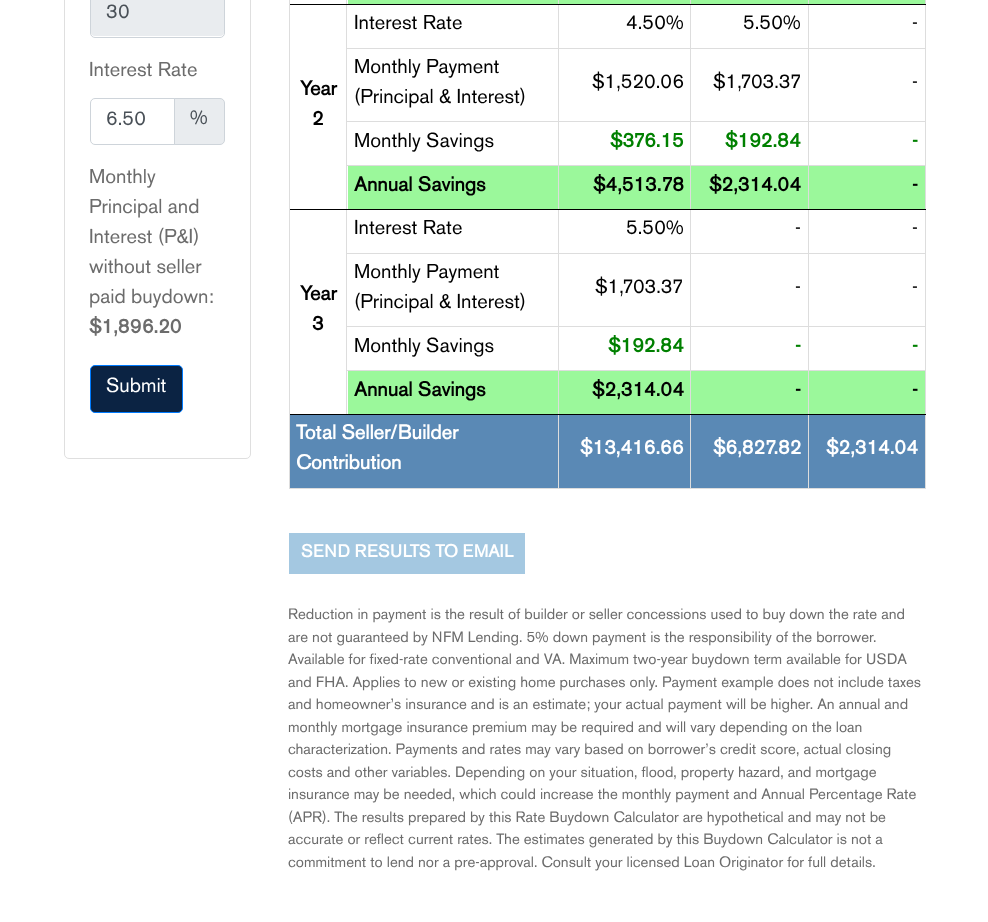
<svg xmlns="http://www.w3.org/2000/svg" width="988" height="922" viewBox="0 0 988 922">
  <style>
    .t1 { font: 20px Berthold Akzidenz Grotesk; fill: #495057; }
    .t2 { font: 20px Berthold Akzidenz Grotesk; fill: #6c6c6c; }
    .t3 { font: bold 20px Berthold Akzidenz Grotesk; fill: #6c6c6c; }
    .t4 { font: 20px Berthold Akzidenz Grotesk; fill: #fff; }
    .t5 { font: 20px Berthold Akzidenz Grotesk; fill: #000; }
    .t6 { font: bold 20px Berthold Akzidenz Grotesk; fill: #000; }
    .t7 { font: bold 20px Berthold Akzidenz Grotesk; fill: #008000; }
    .t8 { font: bold 20px Berthold Akzidenz Grotesk; fill: #fff; }
    .t9 { font: bold 17.5px Berthold Akzidenz Grotesk; fill: #fff; }
    .t10 { font: 15px Berthold Akzidenz Grotesk; fill: #6c6c6c; }
  </style>
  <rect width="100%" height="100%" fill="#fff"/>
  <rect x="64.5" y="-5.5" width="186" height="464" rx="4.5" fill="none" stroke="#dfdfdf"/>
  <rect x="91" y="-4" width="133" height="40" rx="4" fill="#e9ecef"/>
  <rect x="90.5" y="-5.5" width="134" height="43" rx="4.5" fill="none" stroke="#ced4da"/>
  <text x="106" y="18" class="t1">30</text>
  <text x="89" y="76" class="t2">Interest Rate</text>
  <path d="M174.5 98.5H220C222.5 98.5 224.5 100.5 224.5 103V140C224.5 142.5 222.5 144.5 220 144.5H174.5Z" fill="#e9ecef" stroke="#ced4da"/>
  <path d="M95 98.5H174.5V144.5H95C92.5 144.5 90.5 142.5 90.5 140V103C90.5 100.5 92.5 98.5 95 98.5Z" fill="none" stroke="#ced4da"/>
  <text x="106" y="125" class="t1">6.50</text>
  <text x="190" y="124" class="t1">%</text>
  <text x="89" y="183" class="t2">Monthly</text>
  <text x="89" y="213" class="t2">Principal and</text>
  <text x="89" y="243" class="t2">Interest (P&amp;I)</text>
  <text x="89" y="273" class="t2">without seller</text>
  <text x="89" y="303" class="t2">paid buydown:</text>
  <text x="89" y="333" class="t3">$1,896.20</text>
  <rect x="90.5" y="365.5" width="92" height="47" rx="4.5" fill="#0b2343" stroke="#007bff"/>
  <text x="106" y="392" class="t4">Submit</text>
  <rect x="808" y="48" width="118" height="1" fill="#ddd"/>
  <rect x="808" y="121" width="118" height="1" fill="#ddd"/>
  <rect x="808" y="165" width="118" height="1" fill="#ddd"/>
  <rect x="808" y="253" width="118" height="1" fill="#ddd"/>
  <rect x="808" y="326" width="118" height="1" fill="#ddd"/>
  <rect x="808" y="370" width="118" height="1" fill="#ddd"/>
  <rect x="925" y="414" width="1" height="75" fill="#ddd"/>
  <rect x="925" y="370" width="1" height="45" fill="#ddd"/>
  <rect x="925" y="326" width="1" height="45" fill="#ddd"/>
  <rect x="925" y="209" width="1" height="119" fill="#ddd"/>
  <rect x="925" y="165" width="1" height="45" fill="#ddd"/>
  <rect x="808" y="488" width="118" height="1" fill="#ddd"/>
  <rect x="808" y="414" width="1" height="75" fill="#ddd"/>
  <rect x="808" y="414" width="118" height="1" fill="#000"/>
  <rect x="808" y="370" width="1" height="45" fill="#ddd"/>
  <rect x="690" y="370" width="119" height="1" fill="#ddd"/>
  <rect x="808" y="326" width="1" height="45" fill="#ddd"/>
  <rect x="690" y="326" width="119" height="1" fill="#ddd"/>
  <rect x="808" y="253" width="1" height="75" fill="#ddd"/>
  <rect x="690" y="253" width="119" height="1" fill="#ddd"/>
  <rect x="808" y="209" width="1" height="45" fill="#ddd"/>
  <rect x="808" y="209" width="118" height="1" fill="#000"/>
  <rect x="808" y="165" width="1" height="45" fill="#ddd"/>
  <rect x="690" y="165" width="119" height="1" fill="#ddd"/>
  <rect x="808" y="121" width="1" height="45" fill="#ddd"/>
  <rect x="690" y="121" width="119" height="1" fill="#ddd"/>
  <rect x="808" y="48" width="1" height="75" fill="#ddd"/>
  <rect x="690" y="48" width="119" height="1" fill="#ddd"/>
  <rect x="808" y="4" width="1" height="45" fill="#ddd"/>
  <rect x="925" y="121" width="1" height="45" fill="#ddd"/>
  <rect x="925" y="0" width="1" height="123" fill="#ddd"/>
  <rect x="808" y="4" width="118" height="1" fill="#000"/>
  <rect x="348" y="0" width="577" height="4" fill="#9bf89b"/>
  <rect x="808" y="0" width="1" height="5" fill="#ddd"/>
  <rect x="690" y="488" width="119" height="1" fill="#ddd"/>
  <rect x="690" y="414" width="1" height="75" fill="#ddd"/>
  <rect x="690" y="414" width="119" height="1" fill="#000"/>
  <rect x="690" y="370" width="1" height="45" fill="#ddd"/>
  <rect x="558" y="370" width="133" height="1" fill="#ddd"/>
  <rect x="690" y="326" width="1" height="45" fill="#ddd"/>
  <rect x="558" y="326" width="133" height="1" fill="#ddd"/>
  <rect x="690" y="253" width="1" height="75" fill="#ddd"/>
  <rect x="558" y="253" width="133" height="1" fill="#ddd"/>
  <rect x="690" y="209" width="1" height="45" fill="#ddd"/>
  <rect x="690" y="209" width="119" height="1" fill="#000"/>
  <rect x="690" y="165" width="1" height="45" fill="#ddd"/>
  <rect x="558" y="165" width="133" height="1" fill="#ddd"/>
  <rect x="690" y="121" width="1" height="45" fill="#ddd"/>
  <rect x="558" y="121" width="133" height="1" fill="#ddd"/>
  <rect x="690" y="48" width="1" height="75" fill="#ddd"/>
  <rect x="558" y="48" width="133" height="1" fill="#ddd"/>
  <rect x="690" y="4" width="1" height="45" fill="#ddd"/>
  <rect x="690" y="4" width="119" height="1" fill="#000"/>
  <rect x="690" y="0" width="1" height="5" fill="#ddd"/>
  <rect x="558" y="488" width="133" height="1" fill="#ddd"/>
  <rect x="558" y="414" width="1" height="75" fill="#ddd"/>
  <rect x="558" y="414" width="133" height="1" fill="#000"/>
  <rect x="558" y="370" width="1" height="45" fill="#ddd"/>
  <rect x="346" y="370" width="213" height="1" fill="#ddd"/>
  <rect x="558" y="326" width="1" height="45" fill="#ddd"/>
  <rect x="346" y="326" width="213" height="1" fill="#ddd"/>
  <rect x="558" y="253" width="1" height="75" fill="#ddd"/>
  <rect x="346" y="253" width="213" height="1" fill="#ddd"/>
  <rect x="558" y="209" width="1" height="45" fill="#ddd"/>
  <rect x="558" y="209" width="133" height="1" fill="#000"/>
  <rect x="558" y="165" width="1" height="45" fill="#ddd"/>
  <rect x="346" y="165" width="213" height="1" fill="#ddd"/>
  <rect x="558" y="121" width="1" height="45" fill="#ddd"/>
  <rect x="346" y="121" width="213" height="1" fill="#ddd"/>
  <rect x="558" y="48" width="1" height="75" fill="#ddd"/>
  <rect x="346" y="48" width="213" height="1" fill="#ddd"/>
  <rect x="558" y="4" width="1" height="45" fill="#ddd"/>
  <rect x="558" y="4" width="133" height="1" fill="#000"/>
  <rect x="558" y="0" width="1" height="5" fill="#ddd"/>
  <rect x="346" y="414" width="213" height="1" fill="#000"/>
  <rect x="346" y="370" width="1" height="45" fill="#ddd"/>
  <rect x="346" y="326" width="1" height="45" fill="#ddd"/>
  <rect x="346" y="209" width="1" height="119" fill="#ddd"/>
  <rect x="346" y="209" width="213" height="1" fill="#000"/>
  <rect x="346" y="165" width="1" height="45" fill="#ddd"/>
  <rect x="346" y="121" width="1" height="45" fill="#ddd"/>
  <rect x="346" y="4" width="1" height="119" fill="#ddd"/>
  <rect x="346" y="4" width="213" height="1" fill="#000"/>
  <rect x="346" y="0" width="1" height="5" fill="#ddd"/>
  <rect x="289" y="488" width="270" height="1" fill="#ddd"/>
  <rect x="289" y="414" width="1" height="75" fill="#ddd"/>
  <rect x="289" y="414" width="59" height="1" fill="#000"/>
  <rect x="289" y="209" width="1" height="206" fill="#ddd"/>
  <rect x="289" y="209" width="59" height="1" fill="#000"/>
  <rect x="289" y="4" width="1" height="206" fill="#ddd"/>
  <rect x="289" y="4" width="59" height="1" fill="#000"/>
  <rect x="289" y="0" width="1" height="5" fill="#ddd"/>
  <text x="354" y="29" class="t5">Interest Rate</text>
  <text x="626" y="29" class="t5">4.50%</text>
  <text x="743" y="29" class="t5">5.50%</text>
  <text x="912" y="29" class="t5">-</text>
  <text x="300" y="95" class="t6">Year</text>
  <text x="312" y="125" class="t6">2</text>
  <text x="354" y="73" class="t5">Monthly Payment</text>
  <text x="354" y="103" class="t5">(Principal &amp; Interest)</text>
  <text x="592" y="88" class="t5">$1,520.06</text>
  <text x="713" y="88" class="t5">$1,703.37</text>
  <text x="912" y="88" class="t5">-</text>
  <text x="354" y="147" class="t5">Monthly Savings</text>
  <text x="610" y="147" class="t7">$376.15</text>
  <text x="725" y="147" class="t7">$192.84</text>
  <text x="912" y="147" class="t7">-</text>
  <rect x="348" y="166" width="210" height="43" fill="#9bf89b"/>
  <text x="354" y="191" class="t6">Annual Savings</text>
  <rect x="559" y="166" width="131" height="43" fill="#9bf89b"/>
  <text x="593" y="191" class="t6">$4,513.78</text>
  <rect x="691" y="166" width="117" height="43" fill="#9bf89b"/>
  <text x="709" y="191" class="t6">$2,314.04</text>
  <rect x="809" y="166" width="116" height="43" fill="#9bf89b"/>
  <text x="912" y="191" class="t6">-</text>
  <text x="354" y="234" class="t5">Interest Rate</text>
  <text x="626" y="234" class="t5">5.50%</text>
  <text x="795" y="234" class="t5">-</text>
  <text x="912" y="234" class="t5">-</text>
  <text x="300" y="300" class="t6">Year</text>
  <text x="312" y="330" class="t6">3</text>
  <text x="354" y="278" class="t5">Monthly Payment</text>
  <text x="354" y="308" class="t5">(Principal &amp; Interest)</text>
  <text x="595" y="293" class="t5">$1,703.37</text>
  <text x="795" y="293" class="t5">-</text>
  <text x="912" y="293" class="t5">-</text>
  <text x="354" y="352" class="t5">Monthly Savings</text>
  <text x="608" y="352" class="t7">$192.84</text>
  <text x="795" y="352" class="t7">-</text>
  <text x="912" y="352" class="t7">-</text>
  <rect x="348" y="371" width="210" height="43" fill="#9bf89b"/>
  <text x="354" y="396" class="t6">Annual Savings</text>
  <rect x="559" y="371" width="131" height="43" fill="#9bf89b"/>
  <text x="592" y="396" class="t6">$2,314.04</text>
  <rect x="691" y="371" width="117" height="43" fill="#9bf89b"/>
  <text x="795" y="396" class="t6">-</text>
  <rect x="809" y="371" width="116" height="43" fill="#9bf89b"/>
  <text x="912" y="396" class="t6">-</text>
  <rect x="290" y="415" width="268" height="73" fill="#5a89b5"/>
  <text x="296" y="439" class="t8">Total Seller/Builder</text>
  <text x="296" y="469" class="t8">Contribution</text>
  <rect x="559" y="415" width="131" height="73" fill="#5a89b5"/>
  <text x="580" y="454" class="t8">$13,416.66</text>
  <rect x="691" y="415" width="117" height="73" fill="#5a89b5"/>
  <text x="713" y="454" class="t8">$6,827.82</text>
  <rect x="809" y="415" width="116" height="73" fill="#5a89b5"/>
  <text x="826" y="454" class="t8">$2,314.04</text>
  <rect x="289" y="533" width="236" height="41" fill="#a4c8e1"/>
  <text x="301" y="557" class="t9">SEND RESULTS TO EMAIL</text>
  <text x="288" y="619" class="t10">Reduction in payment is the result of builder or seller concessions used to buy down the rate and</text>
  <text x="288" y="642" class="t10">are not guaranteed by NFM Lending. 5% down payment is the responsibility of the borrower.</text>
  <text x="288" y="664" class="t10">Available for fixed-rate conventional and VA. Maximum two-year buydown term available for USDA</text>
  <text x="288" y="687" class="t10">and FHA. Applies to new or existing home purchases only. Payment example does not include taxes</text>
  <text x="288" y="709" class="t10">and homeowner’s insurance and is an estimate; your actual payment will be higher. An annual and</text>
  <text x="288" y="732" class="t10">monthly mortgage insurance premium may be required and will vary depending on the loan</text>
  <text x="288" y="754" class="t10">characterization. Payments and rates may vary based on borrower’s credit score, actual closing</text>
  <text x="288" y="777" class="t10">costs and other variables. Depending on your situation, flood, property hazard, and mortgage</text>
  <text x="288" y="799" class="t10">insurance may be needed, which could increase the monthly payment and Annual Percentage Rate</text>
  <text x="288" y="822" class="t10">(APR). The results prepared by this Rate Buydown Calculator are hypothetical and may not be</text>
  <text x="288" y="844" class="t10">accurate or reflect current rates. The estimates generated by this Buydown Calculator is not a</text>
  <text x="288" y="867" class="t10">commitment to lend nor a pre-approval. Consult your licensed Loan Originator for full details.</text>
</svg>
